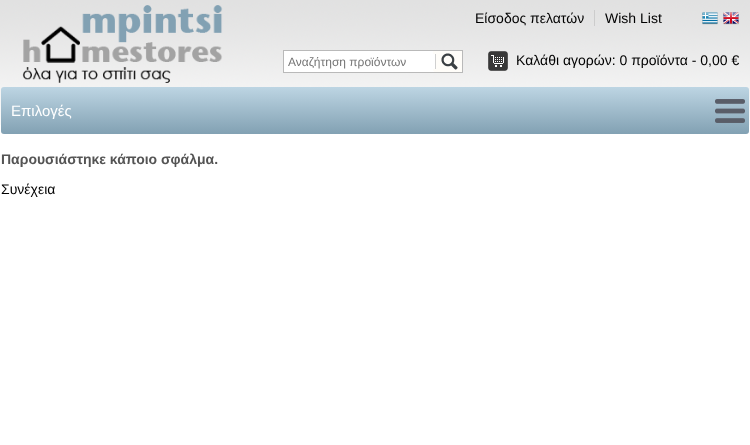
<svg xmlns="http://www.w3.org/2000/svg" width="750" height="445" viewBox="0 0 750 445">
  <style>
    .t1 { font: 14px Liberation Sans; fill: #000; }
    .t2 { font: 12px Liberation Sans; fill: #757575; }
    .t3 { font: 15px Liberation Sans; fill: #fff; }
    .t4 { font: bold 14px Liberation Sans; fill: #545454; }
  </style>
  <defs>
    <linearGradient id="g1" gradientUnits="userSpaceOnUse" x1="375" y1="87" x2="375" y2="134"><stop offset="0" stop-color="#bdd5e3"/><stop offset="1" stop-color="#82a1b3"/></linearGradient>
  </defs>
  <rect width="100%" height="100%" fill="#fff"/>
  <image x="0" y="0" width="750" height="125" href="images/1.png"/>
  <image x="22" y="5" width="201" height="78" href="images/2.png"/>
  <text x="475" y="23" class="t1">Είσοδος πελατών</text>
  <rect x="594" y="10" width="1" height="16" fill="#ccc"/>
  <text x="605" y="23" class="t1">Wish List</text>
  <image x="702" y="12" width="16" height="13" href="images/3.png"/>
  <image x="723" y="12" width="16" height="13" href="images/4.png"/>
  <image x="283" y="50" width="155" height="23" href="images/5.png"/>
  <text x="288" y="66" class="t2">Αναζήτηση προϊόντων</text>
  <image x="438" y="50" width="25" height="23" href="images/6.png"/>
  <image x="488" y="51" width="20" height="20" href="images/7.png"/>
  <text x="516" y="65" class="t1">Καλάθι αγορών: 0 προϊόντα - 0,00 €</text>
  <rect x="1" y="87" width="748" height="47" rx="3" fill="url(#g1)"/>
  <image x="715" y="99" width="30" height="24" href="images/8.png"/>
  <text x="11" y="116" class="t3">Επιλογές</text>
  <text x="1" y="164" class="t4">Παρουσιάστηκε κάποιο σφάλμα.</text>
  <text x="1" y="194" class="t1">Συνέχεια</text>
</svg>
